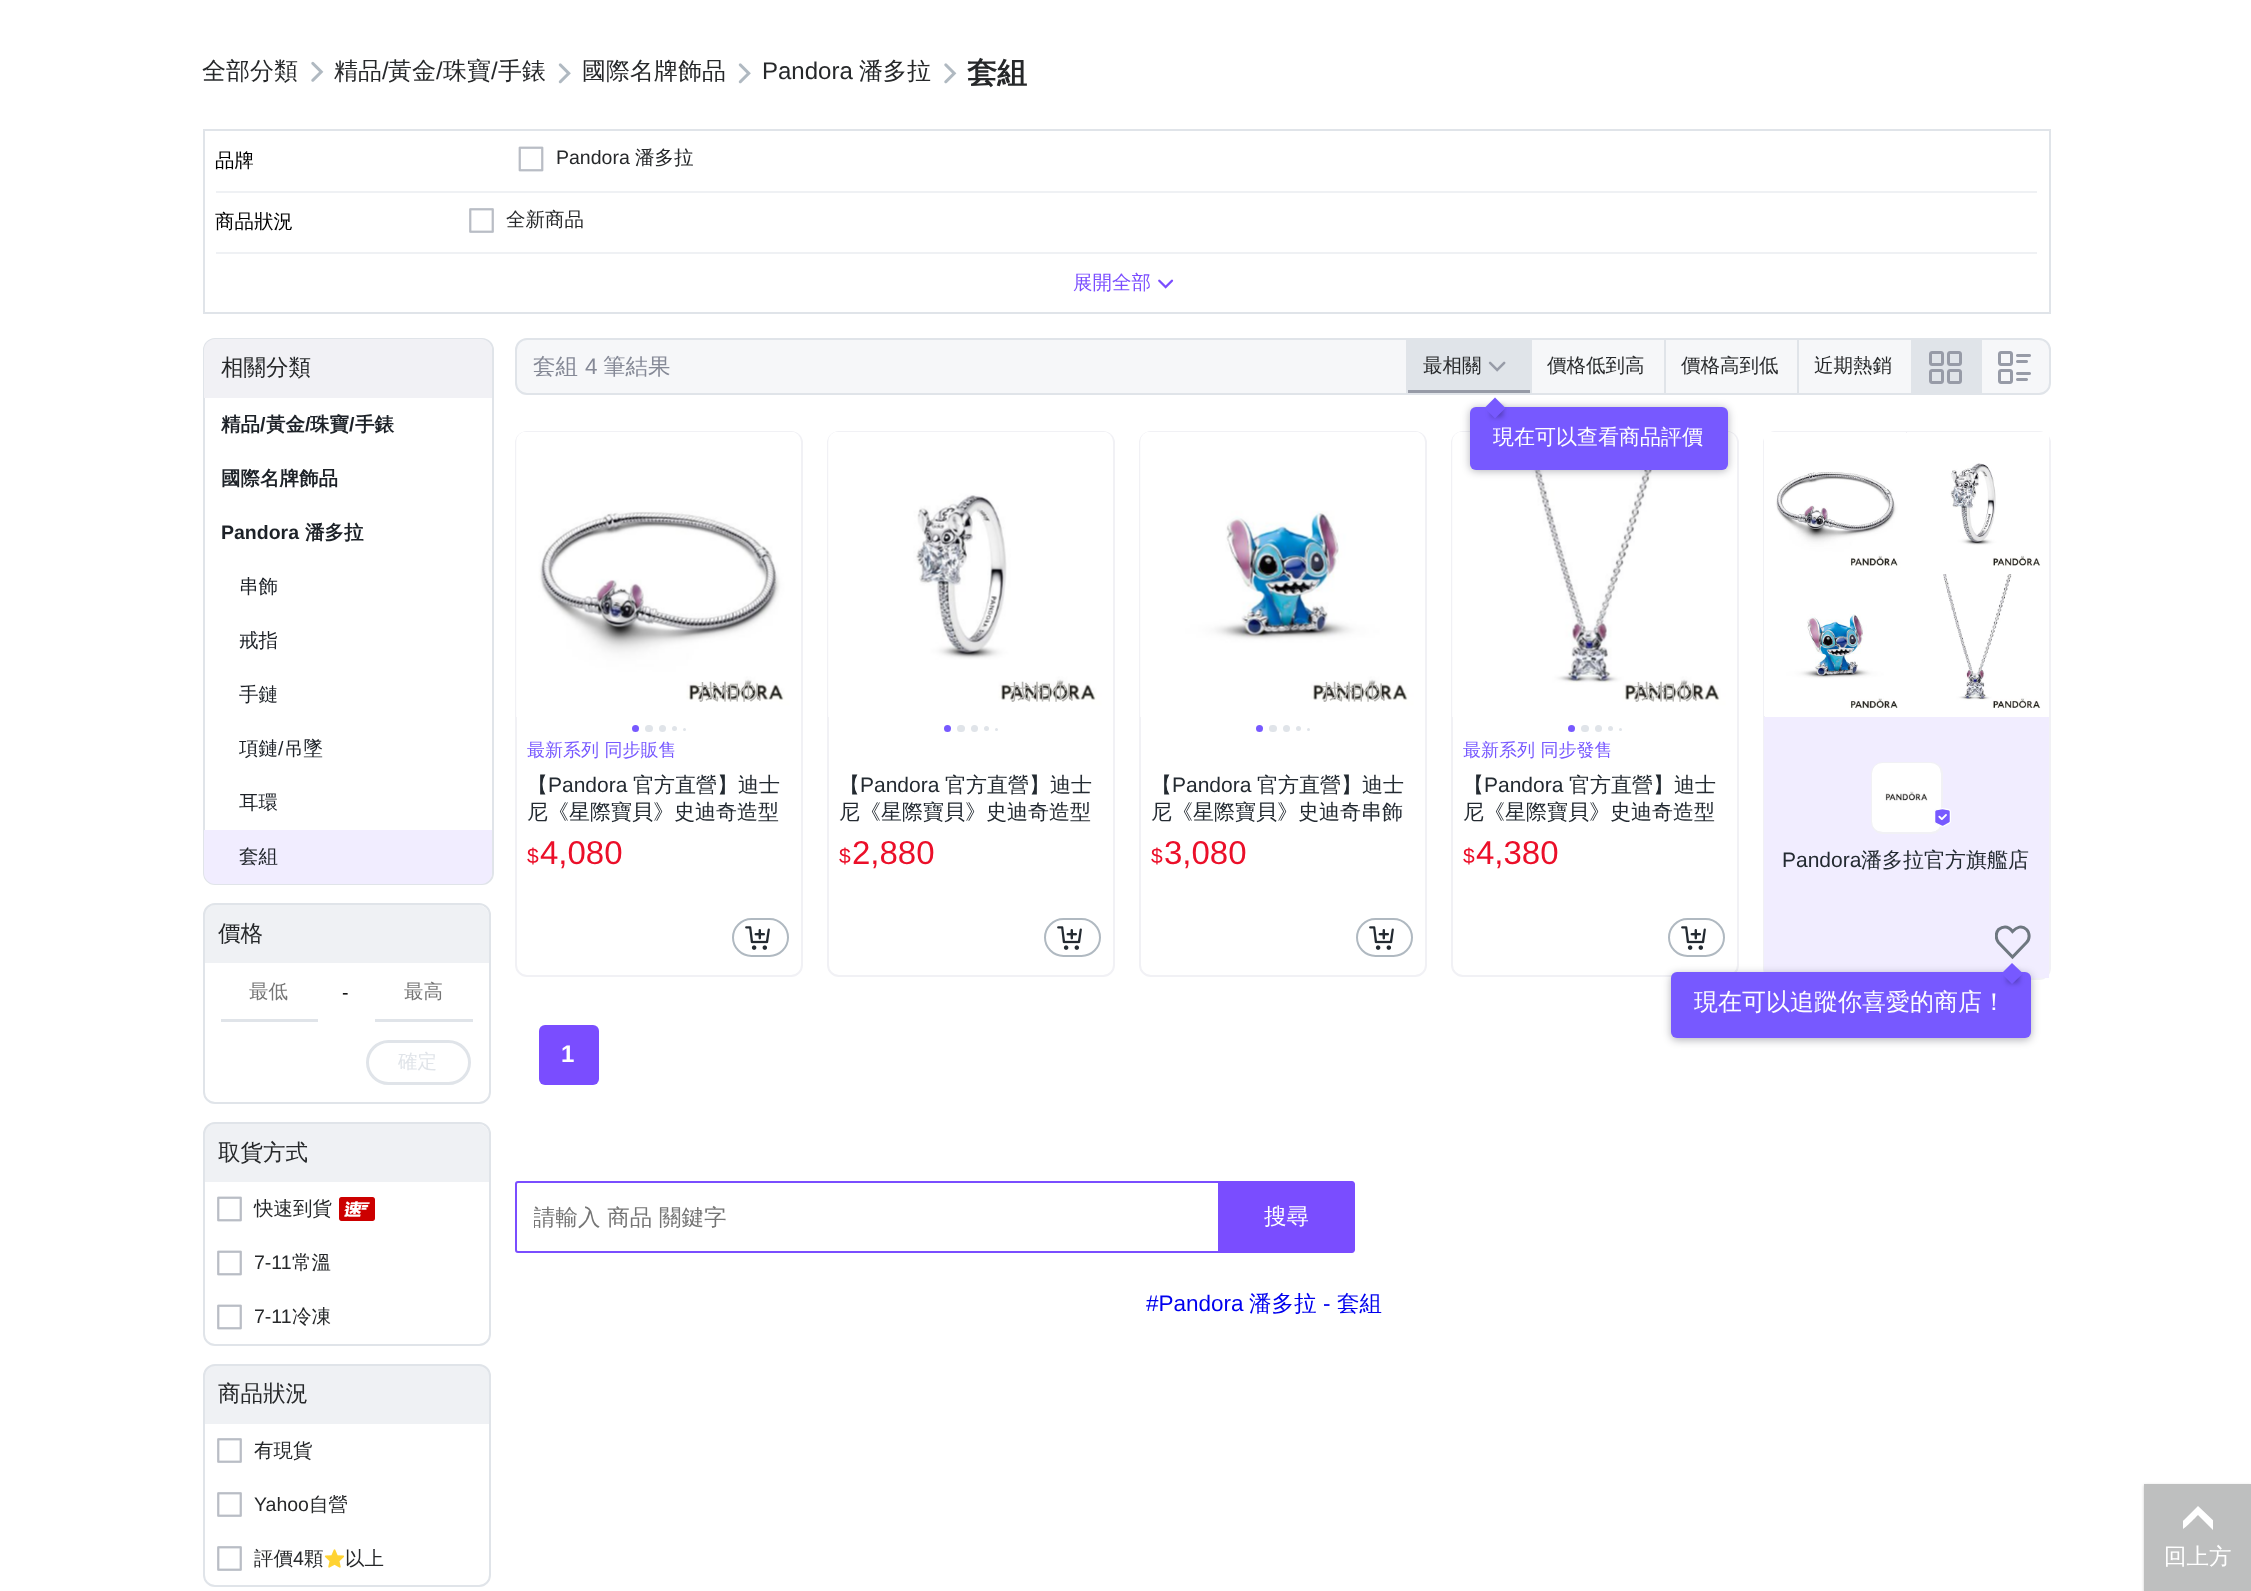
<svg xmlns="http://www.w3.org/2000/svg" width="2251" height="1591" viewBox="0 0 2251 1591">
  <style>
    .t1 { font: 500 24px WenQuanYi Zen Hei; fill: #26282a; }
    .t2 { font: 24px Liberation Sans; fill: #26282a; }
    .t3 { font: bold 30px WenQuanYi Zen Hei; fill: #26282a; }
    .t4 { font: 500 19.5px WenQuanYi Zen Hei; fill: #000; }
    .t5 { font: 19.5px Liberation Sans; fill: #26282a; }
    .t6 { font: 500 19.5px WenQuanYi Zen Hei; fill: #26282a; }
    .t7 { font: 500 19.5px WenQuanYi Zen Hei; fill: #7a4dff; }
    .t8 { font: 500 22.5px WenQuanYi Zen Hei; fill: #26282a; }
    .t9 { font: bold 19.5px WenQuanYi Zen Hei; fill: #1d2228; }
    .t10 { font: bold 19.5px Liberation Sans; fill: #1d2228; }
    .t11 { font: 500 19.5px WenQuanYi Zen Hei; fill: #1d2228; }
    .t12 { font: 19.5px Liberation Sans; fill: #1d2228; }
    .t13 { font: 500 19.5px WenQuanYi Zen Hei; fill: #757575; }
    .t14 { font: 19.5px Liberation Sans; fill: #000; }
    .t15 { font: 500 19.5px WenQuanYi Zen Hei; fill: #e0e4e9; }
    .t16 { font: 500 22.5px WenQuanYi Zen Hei; fill: #858996; }
    .t17 { font: 22.5px Liberation Sans; fill: #858996; }
    .t18 { font: 500 21px WenQuanYi Zen Hei; fill: #fff; }
    .t19 { font: 500 21px WenQuanYi Zen Hei; fill: #b4b3b0; }
    .t20 { font: 500 18px WenQuanYi Zen Hei; fill: #7759ff; }
    .t21 { font: 500 21px WenQuanYi Zen Hei; fill: #232a31; }
    .t22 { font: 21px Liberation Sans; fill: #232a31; }
    .t23 { font: 21px Liberation Sans; fill: #eb0f29; }
    .t24 { font: 33px Liberation Sans; fill: #eb0f29; }
    .t25 { font: 500 24px WenQuanYi Zen Hei; fill: #fff; }
    .t26 { font: bold 24px Liberation Sans; fill: #fff; }
    .t27 { font: 500 22.5px WenQuanYi Zen Hei; fill: #757575; }
    .t28 { font: 500 22.5px WenQuanYi Zen Hei; fill: #fff; }
    .t29 { font: 22.5px Liberation Sans; fill: #00e; }
    .t30 { font: 500 22.5px WenQuanYi Zen Hei; fill: #00e; }
  </style>
  <defs>
    <clipPath id="clip1"><rect x="1995" y="924" width="36" height="36"/></clipPath>
    <clipPath id="clip2"><rect x="534" y="1205" width="660" height="28"/></clipPath>
    <clipPath id="clip3"><rect x="2183" y="1506" width="30" height="26"/></clipPath>
  </defs>
  <rect width="100%" height="100%" fill="#fff"/>
  <image x="311" y="61" width="13" height="21" href="images/1.png"/>
  <text x="202" y="79" class="t1">全部分類</text>
  <text x="334" y="79" class="t1">精品</text>
  <text x="382" y="79" class="t2">/</text>
  <text x="388" y="79" class="t1">黃金</text>
  <text x="436" y="79" class="t2">/</text>
  <text x="443" y="79" class="t1">珠寶</text>
  <text x="491" y="79" class="t2">/</text>
  <text x="498" y="79" class="t1">手錶</text>
  <image x="558" y="63" width="13" height="21" href="images/2.png"/>
  <text x="582" y="79" class="t1">國際名牌飾品</text>
  <image x="738" y="63" width="13" height="21" href="images/2.png"/>
  <text x="762" y="79" class="t2">Pandora</text>
  <text x="859" y="79" class="t1">潘多拉</text>
  <image x="944" y="63" width="13" height="21" href="images/3.png"/>
  <text x="967" y="83" class="t3">套組</text>
  <rect x="204" y="130" width="1846" height="183" fill="none" stroke="#e0e4e9" stroke-width="2"/>
  <text x="215" y="167" class="t4">品牌</text>
  <image x="518" y="146" width="26" height="26" href="images/4.png"/>
  <text x="556" y="164" class="t5">Pandora</text>
  <text x="635" y="164" class="t6">潘多拉</text>
  <rect x="216" y="191" width="1821" height="2" fill="#eff1f4"/>
  <text x="215" y="228" class="t4">商品狀況</text>
  <image x="469" y="208" width="25" height="25" href="images/5.png"/>
  <text x="506" y="226" class="t6">全新商品</text>
  <rect x="216" y="252" width="1821" height="2" fill="#eff1f4"/>
  <text x="1073" y="289" class="t7">展開全部</text>
  <image x="1158" y="279" width="16" height="10" href="images/6.png"/>
  <rect x="204" y="339" width="289" height="545" rx="11" fill="none" stroke="#e0e4e9" stroke-width="2"/>
  <path d="M215 339H481C487 339 492 344 492 350V398H204V350C204 344 209 339 215 339Z" fill="#f1f1f5"/>
  <text x="221" y="375" class="t8">相關分類</text>
  <text x="221" y="431" class="t9">精品</text>
  <text x="260" y="431" class="t10">/</text>
  <text x="266" y="431" class="t9">黃金</text>
  <text x="305" y="431" class="t10">/</text>
  <text x="310" y="431" class="t9">珠寶</text>
  <text x="349" y="431" class="t10">/</text>
  <text x="355" y="431" class="t9">手錶</text>
  <text x="221" y="485" class="t9">國際名牌飾品</text>
  <text x="221" y="539" class="t10">Pandora</text>
  <text x="305" y="539" class="t9">潘多拉</text>
  <text x="239" y="593" class="t11">串飾</text>
  <text x="239" y="647" class="t11">戒指</text>
  <text x="239" y="701" class="t11">手鏈</text>
  <text x="239" y="755" class="t11">項鏈</text>
  <text x="278" y="755" class="t12">/</text>
  <text x="284" y="755" class="t11">吊墜</text>
  <text x="239" y="809" class="t11">耳環</text>
  <path d="M204 830H492V873C492 879 487 884 481 884H215C209 884 204 879 204 873Z" fill="#f1edff"/>
  <text x="239" y="863" class="t11">套組</text>
  <rect x="204" y="904" width="286" height="199" rx="11" fill="none" stroke="#e0e4e9" stroke-width="2"/>
  <path d="M215 905H478C484 905 489 910 489 916V963H204V916C204 910 209 905 215 905Z" fill="#e0e4e980"/>
  <text x="218" y="941" class="t8">價格</text>
  <rect x="221" y="1019" width="97" height="3" fill="#e0e4e9"/>
  <text x="249" y="998" class="t13">最低</text>
  <text x="342" y="999" class="t14">-</text>
  <rect x="375" y="1019" width="98" height="3" fill="#e0e4e9"/>
  <text x="404" y="998" class="t13">最高</text>
  <rect x="367.5" y="1041.5" width="102" height="42" rx="21" fill="none" stroke="#e0e4e9" stroke-width="3"/>
  <text x="398" y="1068" class="t15">確定</text>
  <rect x="204" y="1123" width="286" height="222" rx="11" fill="none" stroke="#e0e4e9" stroke-width="2"/>
  <path d="M215 1124H478C484 1124 489 1129 489 1135V1182H204V1135C204 1129 209 1124 215 1124Z" fill="#e0e4e980"/>
  <text x="218" y="1160" class="t8">取貨方式</text>
  <image x="217" y="1196" width="25" height="26" href="images/7.png"/>
  <text x="254" y="1215" class="t6">快速到貨</text>
  <image x="339" y="1197" width="36" height="24" href="images/8.png"/>
  <image x="217" y="1250" width="25" height="26" href="images/7.png"/>
  <text x="254" y="1269" class="t5">7-11</text>
  <text x="292" y="1269" class="t6">常溫</text>
  <image x="217" y="1304" width="25" height="26" href="images/7.png"/>
  <text x="254" y="1323" class="t5">7-11</text>
  <text x="292" y="1323" class="t6">冷凍</text>
  <rect x="204" y="1365" width="286" height="221" rx="11" fill="none" stroke="#e0e4e9" stroke-width="2"/>
  <path d="M215 1365H478C484 1365 489 1370 489 1376V1424H204V1376C204 1370 209 1365 215 1365Z" fill="#e0e4e980"/>
  <text x="218" y="1401" class="t8">商品狀況</text>
  <image x="217" y="1438" width="25" height="25" href="images/5.png"/>
  <text x="254" y="1457" class="t6">有現貨</text>
  <image x="217" y="1492" width="25" height="25" href="images/5.png"/>
  <text x="254" y="1511" class="t5">Yahoo</text>
  <text x="309" y="1511" class="t6">自營</text>
  <image x="217" y="1546" width="25" height="25" href="images/5.png"/>
  <text x="254" y="1565" class="t6">評價</text>
  <text x="293" y="1565" class="t5">4</text>
  <text x="304" y="1565" class="t6">顆</text>
  <image x="324" y="1549" width="21" height="19" href="images/9.png"/>
  <text x="345" y="1565" class="t6">以上</text>
  <rect x="516" y="339" width="1534" height="55" rx="11" fill="#f6f7f9" stroke="#e0e4e9" stroke-width="2"/>
  <text x="533" y="374" class="t16">套組</text>
  <text x="585" y="374" class="t17">4</text>
  <text x="603" y="374" class="t16">筆結果</text>
  <rect x="1408" y="340" width="122" height="50" fill="#e0e4e9"/>
  <rect x="1406" y="390" width="124" height="3" fill="#979ba7"/>
  <rect x="1406" y="339" width="2" height="54" fill="#e0e4e9"/>
  <text x="1423" y="372" class="t6">最相關</text>
  <image x="1488" y="361" width="18" height="11" href="images/10.png"/>
  <rect x="1530" y="339" width="2" height="54" fill="#e0e4e9"/>
  <text x="1547" y="372" class="t6">價格低到高</text>
  <rect x="1664" y="339" width="2" height="54" fill="#e0e4e9"/>
  <text x="1681" y="372" class="t6">價格高到低</text>
  <rect x="1797" y="339" width="2" height="54" fill="#e0e4e9"/>
  <text x="1814" y="372" class="t6">近期熱銷</text>
  <rect x="1911" y="340" width="69" height="53" fill="#e0e4e9"/>
  <image x="1929" y="351" width="33" height="33" href="images/11.png"/>
  <rect x="1980" y="339" width="2" height="54" fill="#e0e4e9"/>
  <image x="1998" y="351" width="33" height="33" href="images/12.png"/>
  <rect x="1452" y="432" width="286" height="544" rx="11" fill="none" stroke="#f1f1f5" stroke-width="2"/>
  <image x="1452" y="432" width="285" height="285" href="images/17.png"/>
  <rect x="1470" y="408" width="258" height="63" rx="6" fill="#0000144d" filter="blur(4.5px)"/>
  <rect x="1470" y="407" width="258" height="63" rx="6" fill="#7759ff"/>
  <rect x="1491" y="405" width="12" height="12" fill="#0000144d" filter="blur(2.5px)"/>
  <path d="M1495 418.5L1484.5 408L1495 397.5L1505.5 408Z" fill="#7759ff"/>
  <text x="1493" y="444" class="t18">現在可以查看商品評價</text>
  <rect x="516" y="432" width="286" height="544" rx="11" fill="none" stroke="#f1f1f5" stroke-width="2"/>
  <image x="516" y="432" width="285" height="285" href="images/13.png"/>
  <circle cx="635.5" cy="728.5" r="3.5" fill="#7759ff"/>
  <rect x="645" y="725" width="8" height="7" rx="3.5" fill="#e0e4e9"/>
  <circle cx="662.5" cy="728.5" r="3.5" fill="#e0e4e9"/>
  <circle cx="674.5" cy="728.5" r="2.5" fill="#e0e4e9"/>
  <circle cx="684.5" cy="729.5" r="1.5" fill="#e0e4e9"/>
  <text x="698" y="699" class="t19">找相似</text>
  <text x="527" y="756" class="t20">最新系列 同步販售</text>
  <text x="527" y="792" class="t21">【</text>
  <text x="548" y="792" class="t22">Pandora</text>
  <text x="633" y="792" class="t21">官方直營】迪士</text>
  <text x="527" y="819" class="t21">尼《星際寶貝》史迪奇造型</text>
  <text x="527" y="863" class="t23">$</text>
  <text x="540" y="864" class="t24">4,080</text>
  <rect x="733" y="919" width="55" height="37" rx="18.5" fill="none" stroke="#b0b9c1" stroke-width="2"/>
  <image x="745" y="926" width="25" height="24" href="images/14.png"/>
  <rect x="828" y="432" width="286" height="544" rx="11" fill="none" stroke="#f1f1f5" stroke-width="2"/>
  <image x="828" y="432" width="285" height="285" href="images/15.png"/>
  <circle cx="947.5" cy="728.5" r="3.5" fill="#7759ff"/>
  <rect x="957" y="725" width="8" height="7" rx="3.5" fill="#e0e4e9"/>
  <circle cx="974.5" cy="728.5" r="3.5" fill="#e0e4e9"/>
  <circle cx="986.5" cy="728.5" r="2.5" fill="#e0e4e9"/>
  <circle cx="996.5" cy="729.5" r="1.5" fill="#e0e4e9"/>
  <text x="1010" y="699" class="t19">找相似</text>
  <text x="839" y="792" class="t21">【</text>
  <text x="860" y="792" class="t22">Pandora</text>
  <text x="945" y="792" class="t21">官方直營】迪士</text>
  <text x="839" y="819" class="t21">尼《星際寶貝》史迪奇造型</text>
  <text x="839" y="863" class="t23">$</text>
  <text x="852" y="864" class="t24">2,880</text>
  <rect x="1045" y="919" width="55" height="37" rx="18.5" fill="none" stroke="#b0b9c1" stroke-width="2"/>
  <image x="1057" y="926" width="25" height="24" href="images/14.png"/>
  <rect x="1140" y="432" width="286" height="544" rx="11" fill="none" stroke="#f1f1f5" stroke-width="2"/>
  <image x="1140" y="432" width="285" height="285" href="images/16.png"/>
  <circle cx="1259.5" cy="728.5" r="3.5" fill="#7759ff"/>
  <rect x="1269" y="725" width="8" height="7" rx="3.5" fill="#e0e4e9"/>
  <circle cx="1286.5" cy="728.5" r="3.5" fill="#e0e4e9"/>
  <circle cx="1298.5" cy="728.5" r="2.5" fill="#e0e4e9"/>
  <circle cx="1308.5" cy="729.5" r="1.5" fill="#e0e4e9"/>
  <text x="1322" y="699" class="t19">找相似</text>
  <text x="1151" y="792" class="t21">【</text>
  <text x="1172" y="792" class="t22">Pandora</text>
  <text x="1257" y="792" class="t21">官方直營】迪士</text>
  <text x="1151" y="819" class="t21">尼《星際寶貝》史迪奇串飾</text>
  <text x="1151" y="863" class="t23">$</text>
  <text x="1164" y="864" class="t24">3,080</text>
  <rect x="1357" y="919" width="55" height="37" rx="18.5" fill="none" stroke="#b0b9c1" stroke-width="2"/>
  <image x="1369" y="926" width="25" height="24" href="images/14.png"/>
  <circle cx="1571.5" cy="728.5" r="3.5" fill="#7759ff"/>
  <rect x="1581" y="725" width="8" height="7" rx="3.5" fill="#e0e4e9"/>
  <circle cx="1598.5" cy="728.5" r="3.5" fill="#e0e4e9"/>
  <circle cx="1610.5" cy="728.5" r="2.5" fill="#e0e4e9"/>
  <circle cx="1620.5" cy="729.5" r="1.5" fill="#e0e4e9"/>
  <text x="1634" y="699" class="t19">找相似</text>
  <text x="1463" y="756" class="t20">最新系列 同步發售</text>
  <text x="1463" y="792" class="t21">【</text>
  <text x="1484" y="792" class="t22">Pandora</text>
  <text x="1569" y="792" class="t21">官方直營】迪士</text>
  <text x="1463" y="819" class="t21">尼《星際寶貝》史迪奇造型</text>
  <text x="1463" y="863" class="t23">$</text>
  <text x="1476" y="864" class="t24">4,380</text>
  <rect x="1669" y="919" width="55" height="37" rx="18.5" fill="none" stroke="#b0b9c1" stroke-width="2"/>
  <image x="1681" y="926" width="25" height="24" href="images/14.png"/>
  <rect x="1764" y="432" width="286" height="547" rx="11" fill="none" stroke="#f1f1f5" stroke-width="2"/>
  <image x="1764" y="432" width="142" height="142" href="images/18.png"/>
  <image x="1907" y="432" width="142" height="134" href="images/19.png"/>
  <image x="1764" y="574" width="134" height="142" href="images/20.png"/>
  <image x="1943" y="574" width="98" height="134" href="images/21.png"/>
  <rect x="1764" y="717" width="285" height="261" fill="#f1edff"/>
  <rect x="1872" y="763" width="70" height="70" rx="11" fill="#fff" stroke="#f1f1f5" stroke-width="2"/>
  <image x="1872" y="763" width="68" height="68" href="images/22.png"/>
  <image x="1934" y="808" width="17" height="19" href="images/23.png"/>
  <text x="1782" y="867" class="t22">Pandora</text>
  <text x="1861" y="867" class="t21">潘多拉官方旗艦店</text>
  <g clip-path="url(#clip1)">
    <path d="M2026.5 929.5C2022 925 2016.5 927 2012.5 931.5C2009.5 927.5 2007 927 2005 927C2002.5 927 2000.5 928 1998.5 929.5C1995.5 933 1995.5 939 1998.5 942.5L2012.5 957L2026.5 942.5C2030 939 2030 933 2026.5 929.5" fill="none" stroke="#6e7780" stroke-width="3"/>
  </g>
  <rect x="1671" y="974" width="360" height="66" rx="6" fill="#0000144d" filter="blur(4.5px)"/>
  <rect x="1671" y="972" width="360" height="66" rx="6" fill="#7759ff"/>
  <rect x="2007" y="971" width="12" height="12" fill="#0000144d" filter="blur(2.5px)"/>
  <path d="M2012 984L2001.5 973.5L2012 963L2023 973.5Z" fill="#7759ff"/>
  <text x="1694" y="1010" class="t25">現在可以追蹤你喜愛的商店！</text>
  <rect x="539" y="1025" width="60" height="60" rx="6" fill="#7a4dff"/>
  <text x="561" y="1062" class="t26">1</text>
  <path d="M518 1182H1219V1252H518C517 1252 516 1251 516 1250V1184C516 1183 517 1182 518 1182Z" fill="none" stroke="#7a4dff" stroke-width="2"/>
  <g clip-path="url(#clip2)">
    <text x="533" y="1225" class="t27">請輸入 商品 關鍵字</text>
  </g>
  <path d="M1220 1181H1352C1353.5 1181 1355 1182.5 1355 1184V1250C1355 1251.5 1353.5 1253 1352 1253H1220Z" fill="#7a4dff"/>
  <text x="1264" y="1224" class="t28">搜尋</text>
  <text x="1146" y="1311" class="t29">#Pandora</text>
  <text x="1249" y="1311" class="t30">潘多拉</text>
  <text x="1323" y="1311" class="t29">-</text>
  <text x="1337" y="1311" class="t30">套組</text>
  <rect x="2144" y="1485" width="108" height="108" fill="#00000033" filter="blur(1.5px)"/>
  <rect x="2144" y="1484" width="107" height="107" fill="#bebfbf"/>
  <g clip-path="url(#clip3)">
    <path d="M2198 1515L2214 1531C2215 1532 2217 1532 2219 1531C2220 1529 2220 1527 2219 1526L2198 1506L2184 1520C2184 1520 2170 1530 2178 1531C2182 1532 2195 1518 2198 1515Z" fill="#fff" fill-rule="evenodd"/>
  </g>
  <text x="2164" y="1564" class="t28">回上方</text>
</svg>
